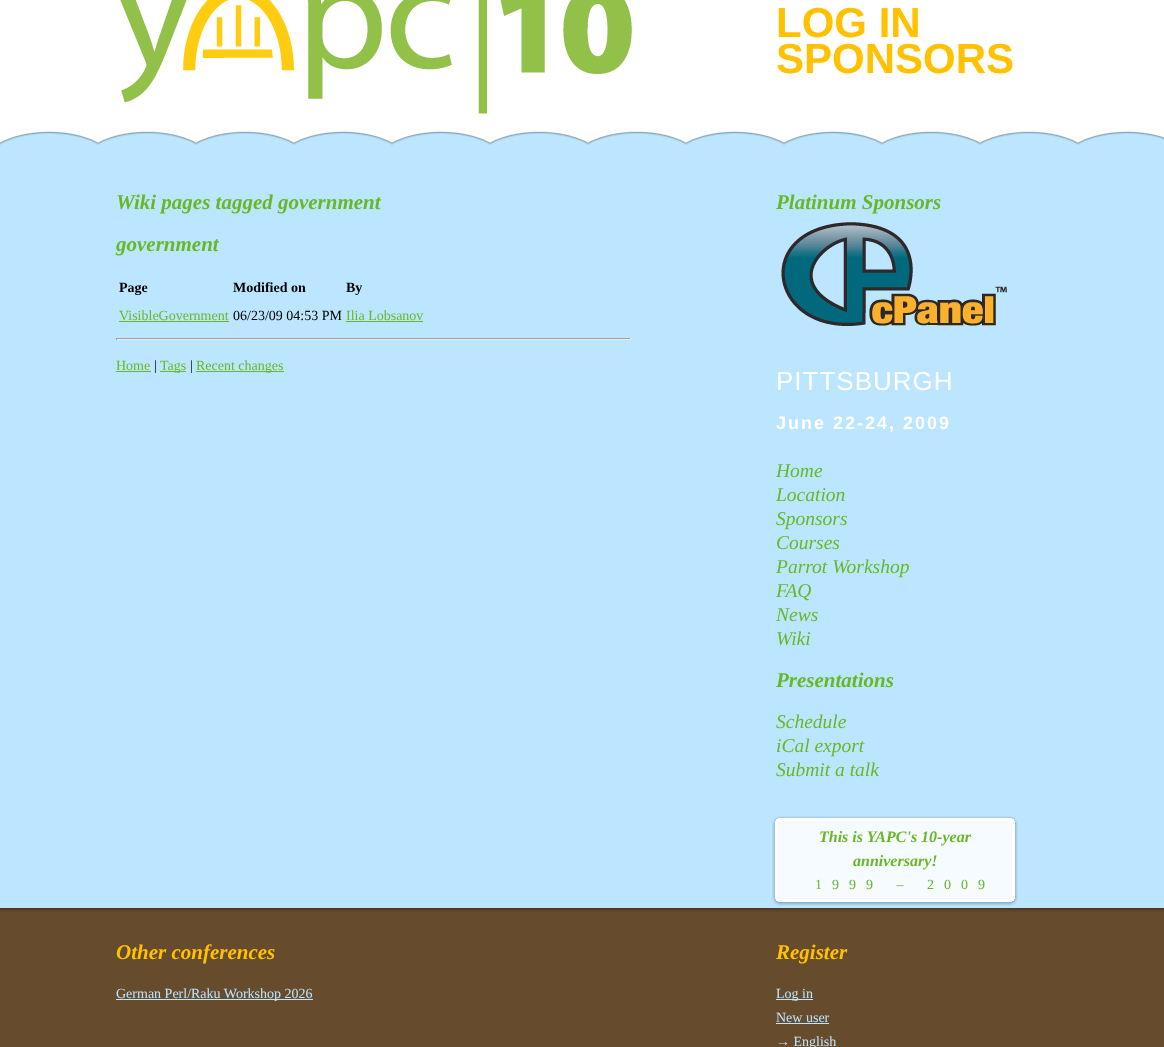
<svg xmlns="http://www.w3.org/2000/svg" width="1164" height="1047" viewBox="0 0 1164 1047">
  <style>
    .t1 { font: bold 42px Liberation Sans; fill: #ffc100; }
    .t2 { font: italic bold 21px Liberation Serif; fill: #68b826; }
    .t3 { font: bold 14px Liberation Serif; fill: #000; }
    .t4 { font: 14px Liberation Serif; fill: #68b826; }
    .t5 { font: 14px Liberation Serif; fill: #000; }
    .t6 { font: 26px Liberation Sans; letter-spacing: 1px; fill: #fff; }
    .t7 { font: bold 18px Liberation Sans; letter-spacing: 2px; fill: #fff; }
    .t8 { font: italic 19.5px Liberation Serif; fill: #68b826; }
    .t9 { font: italic bold 16px Liberation Serif; fill: #68b826; }
    .t10 { font: 14px Liberation Serif; letter-spacing: 10px; fill: #68b826; }
    .t11 { font: italic bold 21px Liberation Serif; fill: #ffc100; }
    .t12 { font: 14px Liberation Serif; fill: #bce6ff; }
  </style>
  <rect width="100%" height="100%" fill="#664b2d"/>
  <rect x="0" y="0" width="1164" height="123" fill="#fff"/>
  <image x="120" y="0" width="512" height="114" href="images/1.png"/>
  <text x="776" y="37" class="t1">LOG IN</text>
  <text x="776" y="73" class="t1">SPONSORS</text>
  <rect x="0" y="131" width="1164" height="777" fill="#bce6ff"/>
  <image x="0" y="123" width="1164" height="22" href="images/2.png"/>
  <text x="116" y="209" class="t2">Wiki pages tagged government</text>
  <text x="116" y="251" class="t2">government</text>
  <text x="119" y="292" class="t3">Page</text>
  <text x="233" y="292" class="t3">Modified on</text>
  <text x="346" y="292" class="t3">By</text>
  <text x="119" y="320" class="t4">VisibleGovernment</text>
  <rect x="119" y="321" width="110" height="1" fill="#68b826"/>
  <text x="233" y="320" class="t5">06/23/09 04:53 PM</text>
  <text x="346" y="320" class="t4">Ilia Lobsanov</text>
  <rect x="346" y="321" width="77" height="1" fill="#68b826"/>
  <rect x="116" y="338" width="515" height="1" fill="#9f9f9f"/>
  <rect x="630" y="338" width="1" height="2" fill="#eee"/>
  <rect x="116" y="339" width="515" height="1" fill="#eee"/>
  <rect x="116" y="338" width="1" height="2" fill="#9f9f9f"/>
  <text x="116" y="370" class="t4">Home</text>
  <rect x="116" y="371" width="35" height="1" fill="#68b826"/>
  <text x="154" y="370" class="t5">|</text>
  <rect x="160" y="371" width="26" height="1" fill="#68b826"/>
  <text x="160" y="370" class="t4">Tags</text>
  <text x="190" y="370" class="t5">|</text>
  <rect x="196" y="371" width="88" height="1" fill="#68b826"/>
  <text x="196" y="370" class="t4">Recent changes</text>
  <text x="776" y="209" class="t2">Platinum Sponsors</text>
  <image x="781" y="222" width="226" height="104" href="images/3.png"/>
  <text x="776" y="390" class="t6">PITTSBURGH</text>
  <text x="776" y="429" class="t7">June 22-24, 2009</text>
  <text x="776" y="477" class="t8">Home</text>
  <text x="776" y="501" class="t8">Location</text>
  <text x="776" y="525" class="t8">Sponsors</text>
  <text x="776" y="549" class="t8">Courses</text>
  <text x="776" y="573" class="t8">Parrot Workshop</text>
  <text x="776" y="597" class="t8">FAQ</text>
  <text x="776" y="621" class="t8">News</text>
  <text x="776" y="645" class="t8">Wiki</text>
  <text x="776" y="687" class="t2">Presentations</text>
  <text x="776" y="728" class="t8">Schedule</text>
  <text x="776" y="752" class="t8">iCal export</text>
  <text x="776" y="776" class="t8">Submit a talk</text>
  <image x="772" y="816" width="246" height="9" href="images/4.png"/>
  <image x="772" y="825" width="246" height="81" href="images/5.png"/>
  <text x="819" y="842" class="t9">This is YAPC's 10-year</text>
  <text x="853" y="866" class="t9">anniversary!</text>
  <text x="815" y="889" class="t10">1999 – 2009</text>
  <image x="0" y="908" width="1164" height="4" href="images/6.png"/>
  <text x="116" y="959" class="t11">Other conferences</text>
  <rect x="116" y="999" width="197" height="1" fill="#bce6ff"/>
  <text x="116" y="998" class="t12">German Perl/Raku Workshop 2026</text>
  <text x="776" y="959" class="t11">Register</text>
  <rect x="776" y="999" width="37" height="1" fill="#bce6ff"/>
  <text x="776" y="998" class="t12">Log in</text>
  <text x="776" y="1022" class="t12">New user</text>
  <rect x="776" y="1023" width="53" height="1" fill="#bce6ff"/>
  <text x="776" y="1046" class="t12">→ English</text>
</svg>
